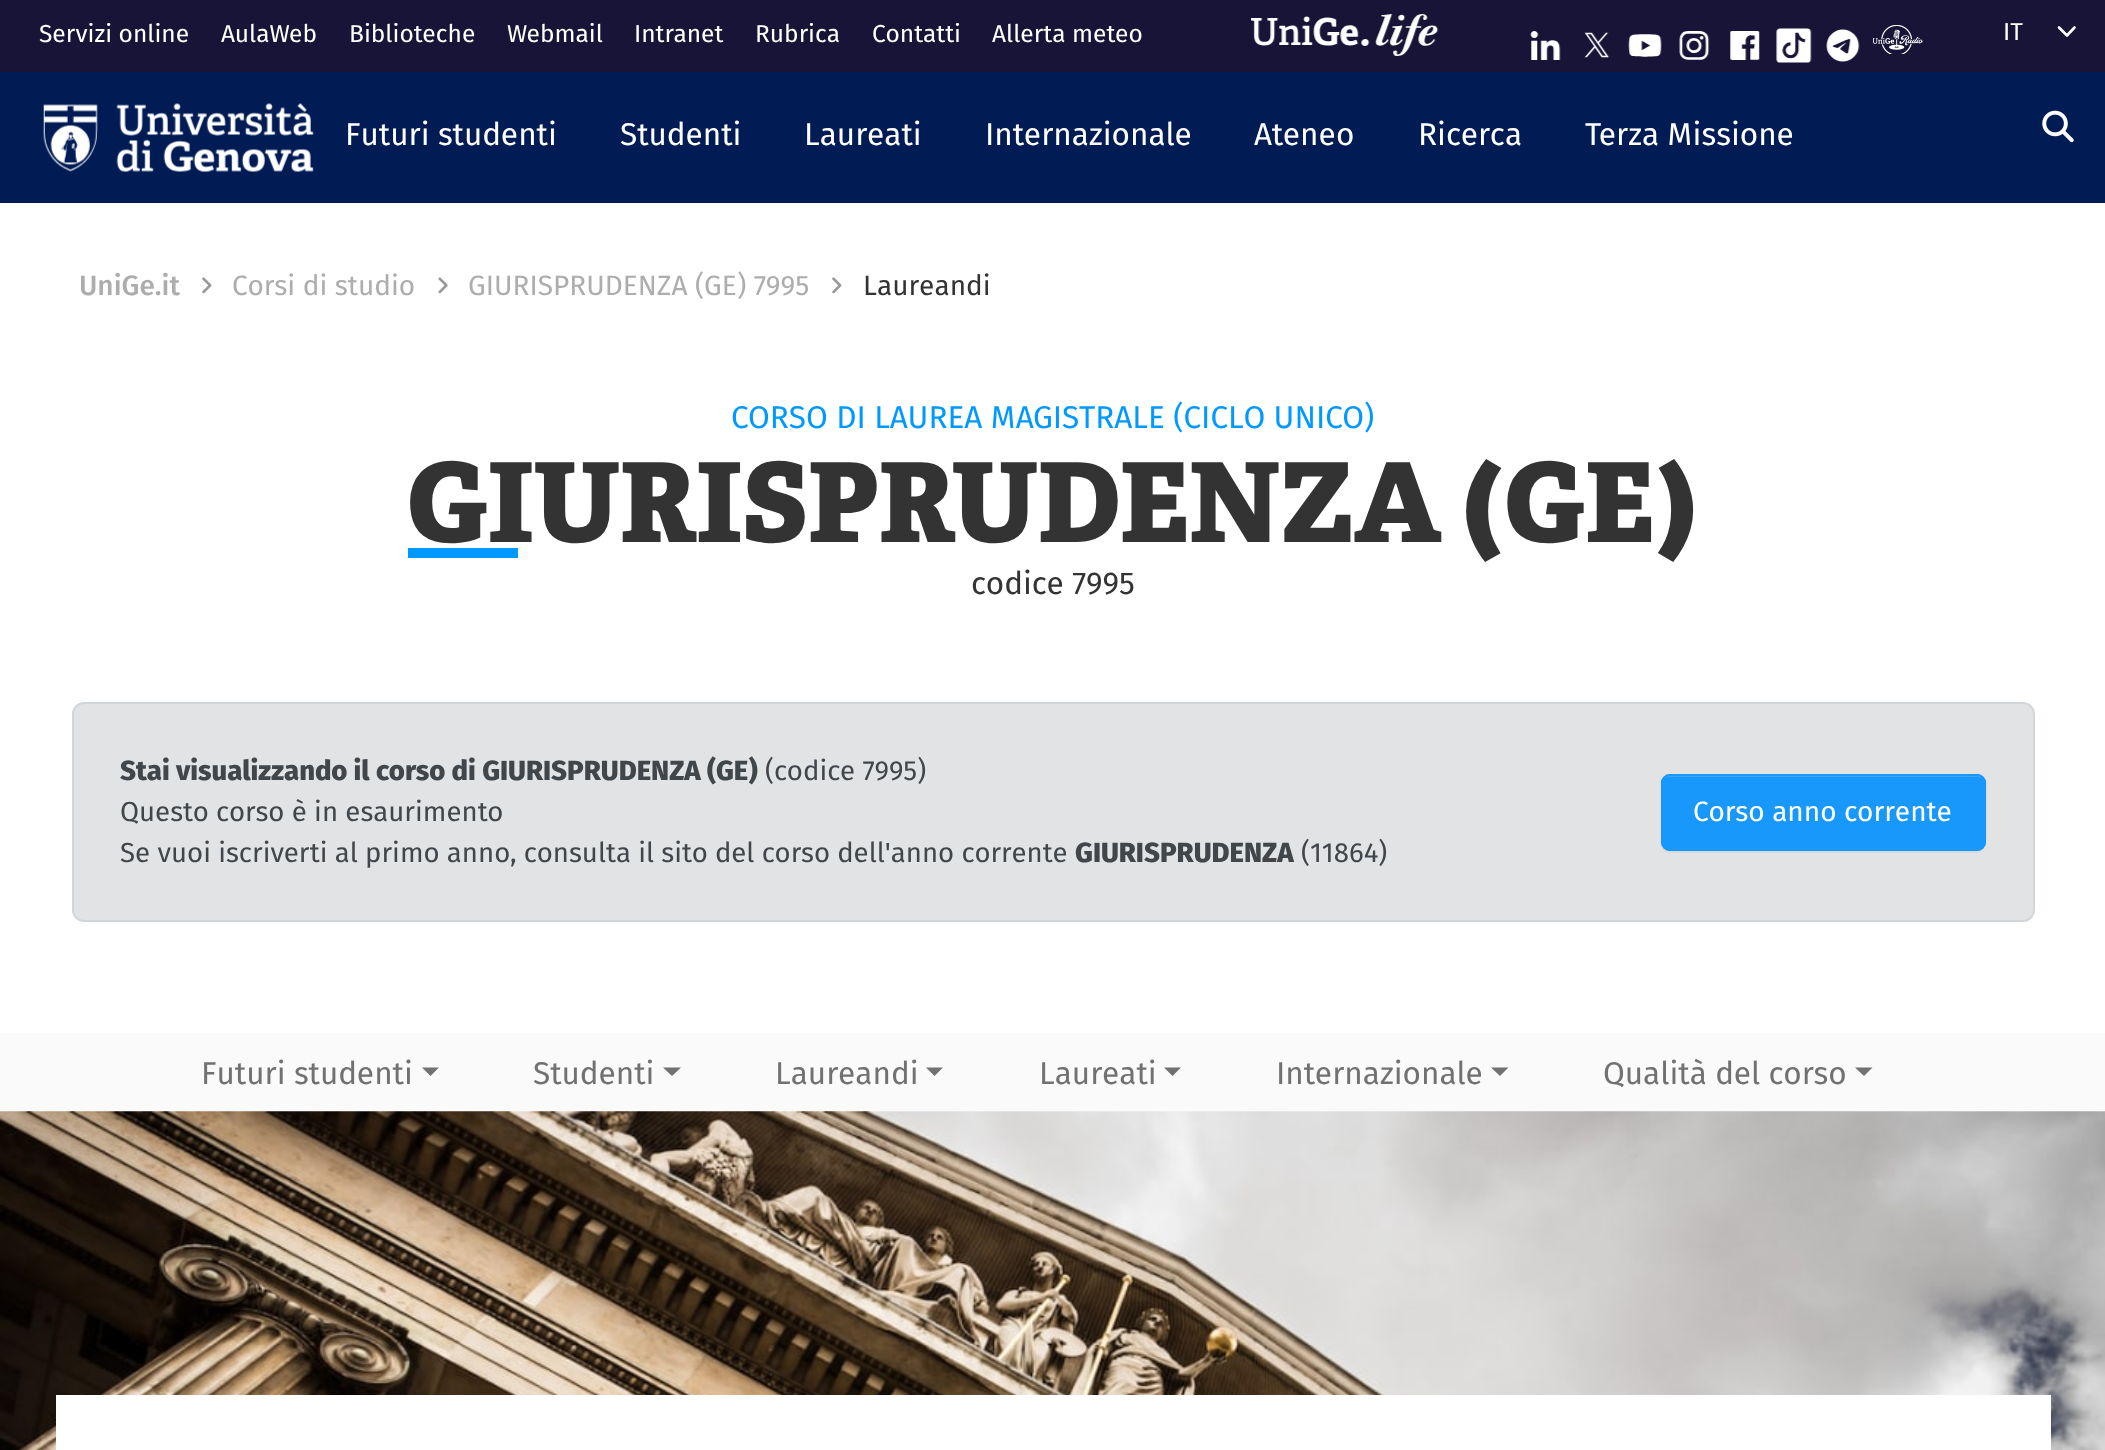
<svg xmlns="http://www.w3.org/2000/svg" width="2105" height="1450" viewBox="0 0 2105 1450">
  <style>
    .t1 { font: 24.5px Fira Sans; fill: #fff; }
    .t2 { font: 31.5px Fira Sans; fill: #fff; }
    .t3 { font: 500 28px Fira Sans; fill: #adadad; }
    .t4 { font: 28px Fira Sans; fill: #adadad; }
    .t5 { font: 28px Fira Sans; fill: #333; }
    .t6 { font: 31.5px Fira Sans; fill: #09f; }
    .t7 { font: 800 110.25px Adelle; fill: #333; }
    .t8 { font: 31.5px Fira Sans; fill: #333; }
    .t9 { font: 800 27.55px Fira Sans; fill: #41464b; }
    .t10 { font: 27.55px Fira Sans; fill: #41464b; }
    .t11 { font: 28px Fira Sans; fill: #fff; }
    .t12 { font: 31.5px Fira Sans; fill: #717171; }
  </style>
  <rect width="100%" height="100%" fill="#fff"/>
  <rect x="0" y="0" width="2105" height="72" fill="#171437"/>
  <text x="39" y="42" class="t1">Servizi online</text>
  <text x="221" y="42" class="t1">AulaWeb</text>
  <text x="349" y="42" class="t1">Biblioteche</text>
  <text x="507" y="42" class="t1">Webmail</text>
  <text x="634" y="42" class="t1">Intranet</text>
  <text x="755" y="42" class="t1">Rubrica</text>
  <text x="872" y="42" class="t1">Contatti</text>
  <text x="992" y="42" class="t1">Allerta meteo</text>
  <image x="1251" y="14" width="188" height="42" href="images/1.png"/>
  <image x="1530" y="31" width="31" height="29" href="images/2.png"/>
  <image x="1584" y="32" width="26" height="26" href="images/3.png"/>
  <image x="1628" y="34" width="34" height="23" href="images/4.png"/>
  <image x="1679" y="31" width="31" height="29" href="images/5.png"/>
  <image x="1730" y="31" width="30" height="29" href="images/6.png"/>
  <image x="1776" y="28" width="36" height="35" href="images/7.png"/>
  <image x="1826" y="29" width="34" height="33" href="images/8.png"/>
  <image x="1873" y="25" width="50" height="29" href="images/9.png"/>
  <path d="M2059 27.5L2067 35.5L2074.5 27.5" fill="none" stroke="#fff" stroke-width="2.6" stroke-linecap="round" stroke-linejoin="round"/>
  <text x="2003" y="40" class="t1">IT</text>
  <rect x="0" y="72" width="2105" height="131" fill="#011c55"/>
  <image x="43" y="103" width="271" height="69" href="images/10.png"/>
  <text x="345" y="145" class="t2">Futuri studenti</text>
  <text x="620" y="145" class="t2">Studenti</text>
  <text x="804" y="145" class="t2">Laureati</text>
  <text x="985" y="145" class="t2">Internazionale</text>
  <text x="1254" y="145" class="t2">Ateneo</text>
  <text x="1418" y="145" class="t2">Ricerca</text>
  <text x="1585" y="145" class="t2">Terza Missione</text>
  <image x="2042" y="110" width="32" height="33" href="images/11.png"/>
  <text x="79" y="295" class="t3">UniGe.it</text>
  <image x="202" y="277" width="10" height="17" href="images/12.png"/>
  <text x="232" y="295" class="t4">Corsi di studio</text>
  <image x="438" y="277" width="10" height="17" href="images/13.png"/>
  <text x="468" y="295" class="t4">GIURISPRUDENZA (GE) 7995</text>
  <image x="832" y="277" width="10" height="17" href="images/12.png"/>
  <text x="863" y="295" class="t5">Laureandi</text>
  <text x="731" y="428" class="t6">CORSO DI LAUREA MAGISTRALE (CICLO UNICO)</text>
  <text x="408" y="542" class="t7">GIURISPRUDENZA (GE)</text>
  <rect x="408" y="548" width="110" height="10" fill="#09f"/>
  <text x="971" y="594" class="t8">codice 7995</text>
  <rect x="73" y="703" width="1961" height="218" rx="11" fill="#e2e3e5" stroke="#d3d6d8" stroke-width="2"/>
  <text x="120" y="780" class="t9">Stai visualizzando il corso di GIURISPRUDENZA (GE)</text>
  <text x="765" y="780" class="t10">(codice 7995)</text>
  <text x="120" y="821" class="t10">Questo corso è in esaurimento</text>
  <text x="120" y="862" class="t10">Se vuoi iscriverti al primo anno, consulta il sito del corso dell'anno corrente</text>
  <text x="1075" y="862" class="t9">GIURISPRUDENZA</text>
  <text x="1301" y="862" class="t10">(11864)</text>
  <rect x="1661" y="775" width="325" height="77" rx="9" fill="#00000012" filter="blur(1px)"/>
  <rect x="1661" y="774" width="325" height="77" rx="9" fill="#1998fc"/>
  <path d="M1669 777H1978C1982 777 1984 780 1984 783V846C1985 845 1985 843 1985 842V782C1985 778 1982 775 1978 775H1670C1667 775 1665 777 1664 779C1665 778 1667 777 1669 777Z" fill="#3ca7fc"/>
  <rect x="1662" y="775" width="323" height="75" rx="8" fill="none" stroke="#1998fc" stroke-width="2"/>
  <text x="1693" y="821" class="t11">Corso anno corrente</text>
  <rect x="0" y="1033" width="2105" height="78" fill="#fafafa"/>
  <text x="201" y="1084" class="t12">Futuri studenti</text>
  <path d="M422 1067.5H439L430.5 1076Z" fill="#717171"/>
  <text x="533" y="1084" class="t12">Studenti</text>
  <path d="M663 1067.5H681L672 1076Z" fill="#717171"/>
  <text x="775" y="1084" class="t12">Laureandi</text>
  <path d="M926 1067.5H943L934.5 1076Z" fill="#717171"/>
  <text x="1039" y="1084" class="t12">Laureati</text>
  <path d="M1164 1067.5H1181L1172.5 1076Z" fill="#717171"/>
  <text x="1276" y="1084" class="t12">Internazionale</text>
  <path d="M1491 1067.5H1508.5L1500 1076Z" fill="#717171"/>
  <text x="1603" y="1084" class="t12">Qualità del corso</text>
  <path d="M1855 1067.5H1872.5L1864 1076Z" fill="#717171"/>
  <image x="0" y="1111" width="2105" height="339" href="images/14.png"/>
  <rect x="56" y="1395" width="1995" height="55" fill="#fff"/>
</svg>
